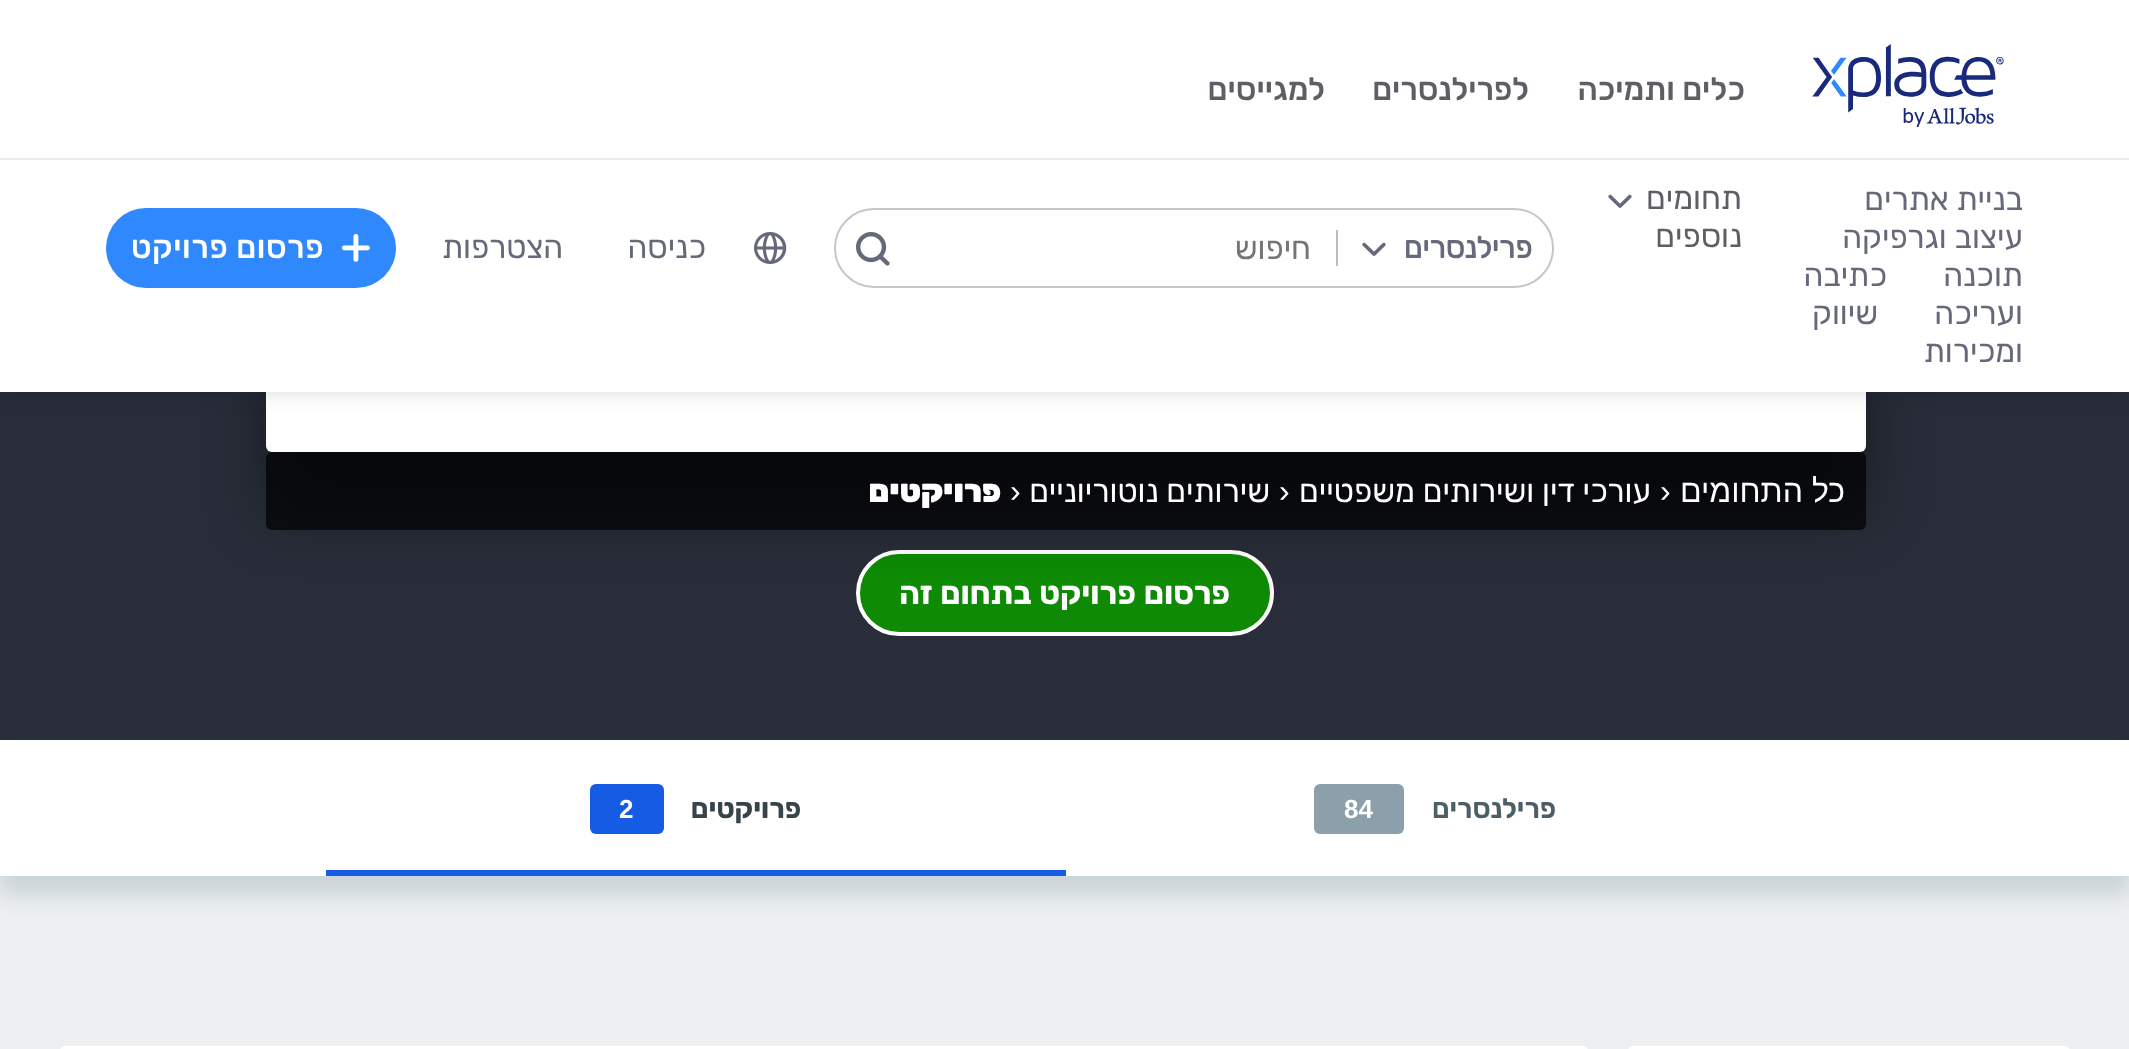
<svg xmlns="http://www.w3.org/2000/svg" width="2129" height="1049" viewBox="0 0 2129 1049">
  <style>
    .t1 { font: 500 32px Rubik; direction: rtl; fill: #5e5f64; }
    .t2 { font: 32px 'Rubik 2'; direction: rtl; fill: #66697a; }
    .t3 { font: 32px 'Rubik 2'; direction: rtl; fill: #5e5f64; }
    .t4 { font: bold 30px 'Rubik 2'; direction: rtl; fill: #66697a; }
    .t5 { font: 32px 'Rubik 2'; direction: rtl; fill: #757575; }
    .t6 { font: 32px Rubik; direction: rtl; fill: #66697a; }
    .t7 { font: 500 32px 'Rubik 2'; letter-spacing: 0.6px; direction: rtl; fill: #fff; }
    .t8 { font: 32px Liberation Sans; direction: rtl; fill: #fff; }
    .t9 { font: 32px Liberation Sans; fill: #fff; }
    .t10 { font: 32px Rubik; direction: rtl; fill: #fff; }
    .t11 { font: 900 32px Rubik; direction: rtl; fill: #fff; }
    .t12 { font: bold 32px Rubik; direction: rtl; fill: #fff; }
    .t13 { font: 600 28px Rubik; direction: rtl; fill: #4c5e67; }
    .t14 { font: bold 26px Liberation Sans; fill: #fff; }
    .t15 { font: bold 28px Rubik; direction: rtl; fill: #36444b; }
  </style>
  <rect width="100%" height="100%" fill="#edeff0"/>
  <rect x="0" y="392" width="2129" height="348" fill="#282d39"/>
  <rect x="858" y="552" width="414" height="82" rx="41" fill="#0e8a04" stroke="#fff" stroke-width="4"/>
  <rect x="266" y="360" width="1600" height="152" rx="6" fill="#00000066" filter="blur(30px)"/>
  <rect x="266" y="300" width="1600" height="152" rx="6" fill="#fff"/>
  <rect x="0" y="0" width="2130" height="392" fill="#00000026" filter="blur(10px)"/>
  <rect x="0" y="0" width="2129" height="392" fill="#fff"/>
  <image x="1812" y="44" width="192" height="83" href="images/1.png"/>
  <text x="1745" y="100" class="t1">כלים ותמיכה</text>
  <text x="1529" y="100" class="t1">לפרילנסרים</text>
  <text x="1325" y="100" class="t1">למגייסים</text>
  <rect x="0" y="158" width="2129" height="2" fill="#ebecee"/>
  <text x="2023" y="210" class="t2">בניית אתרים</text>
  <text x="2023" y="248" class="t2">עיצוב וגרפיקה</text>
  <text x="2023" y="286" class="t2">תוכנה</text>
  <text x="1887" y="286" class="t2">כתיבה</text>
  <text x="2023" y="324" class="t2">ועריכה</text>
  <text x="1878" y="324" class="t2">שיווק</text>
  <text x="2023" y="362" class="t2">ומכירות</text>
  <text x="1742" y="209" class="t3">תחומים</text>
  <text x="1742" y="247" class="t3">נוספים</text>
  <image x="1608" y="194" width="24" height="14" href="images/2.png"/>
  <rect x="835" y="209" width="718" height="78" rx="39" fill="none" stroke="#c5c6cd" stroke-width="2"/>
  <text x="1532" y="258" class="t4">פרילנסרים</text>
  <image x="1362" y="242" width="24" height="14" href="images/2.png"/>
  <rect x="1336" y="230" width="2" height="36" fill="#babbc3"/>
  <text x="1311" y="259" class="t5">חיפוש</text>
  <image x="856" y="232" width="34" height="34" href="images/3.png"/>
  <image x="754" y="232" width="33" height="32" href="images/4.png"/>
  <text x="706" y="258" class="t6">כניסה</text>
  <text x="563" y="258" class="t2">הצטרפות</text>
  <rect x="106" y="208" width="290" height="80" rx="40" fill="#2f89fc"/>
  <image x="341" y="233" width="29" height="29" href="images/5.png"/>
  <text x="324" y="258" class="t7">פרסום פרויקט</text>
  <rect x="266" y="452" width="1600" height="78" rx="6" fill="#000000b3"/>
  <text x="1845" y="502" class="t8">כל התחומים</text>
  <text x="1660" y="502" class="t9">›</text>
  <text x="1651" y="502" class="t10">עורכי דין ושירותים משפטיים</text>
  <text x="1279" y="502" class="t9">›</text>
  <text x="1270" y="502" class="t10">שירותים נוטוריוניים</text>
  <text x="1010" y="502" class="t9">›</text>
  <text x="1001" y="502" class="t11">פרויקטים</text>
  <text x="1230" y="604" word-spacing="1" class="t12">פרסום פרויקט בתחום זה</text>
  <rect x="0" y="760" width="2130" height="136" fill="#cad4d9" filter="blur(10px)"/>
  <rect x="0" y="740" width="2129" height="136" fill="#fff"/>
  <text x="1556" y="818" class="t13">פרילנסרים</text>
  <rect x="1314" y="784" width="90" height="50" rx="6" fill="#8ba0aa"/>
  <text x="1344" y="818" class="t14">84</text>
  <rect x="326" y="870" width="740" height="6" fill="#155be3"/>
  <text x="801" y="818" class="t15">פרויקטים</text>
  <rect x="590" y="784" width="74" height="50" rx="6" fill="#155be3"/>
  <text x="619" y="818" class="t14">2</text>
  <rect x="1628" y="1046" width="442" height="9" rx="6" fill="#fff"/>
  <rect x="60" y="1046" width="1528" height="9" rx="6" fill="#fff"/>
</svg>
